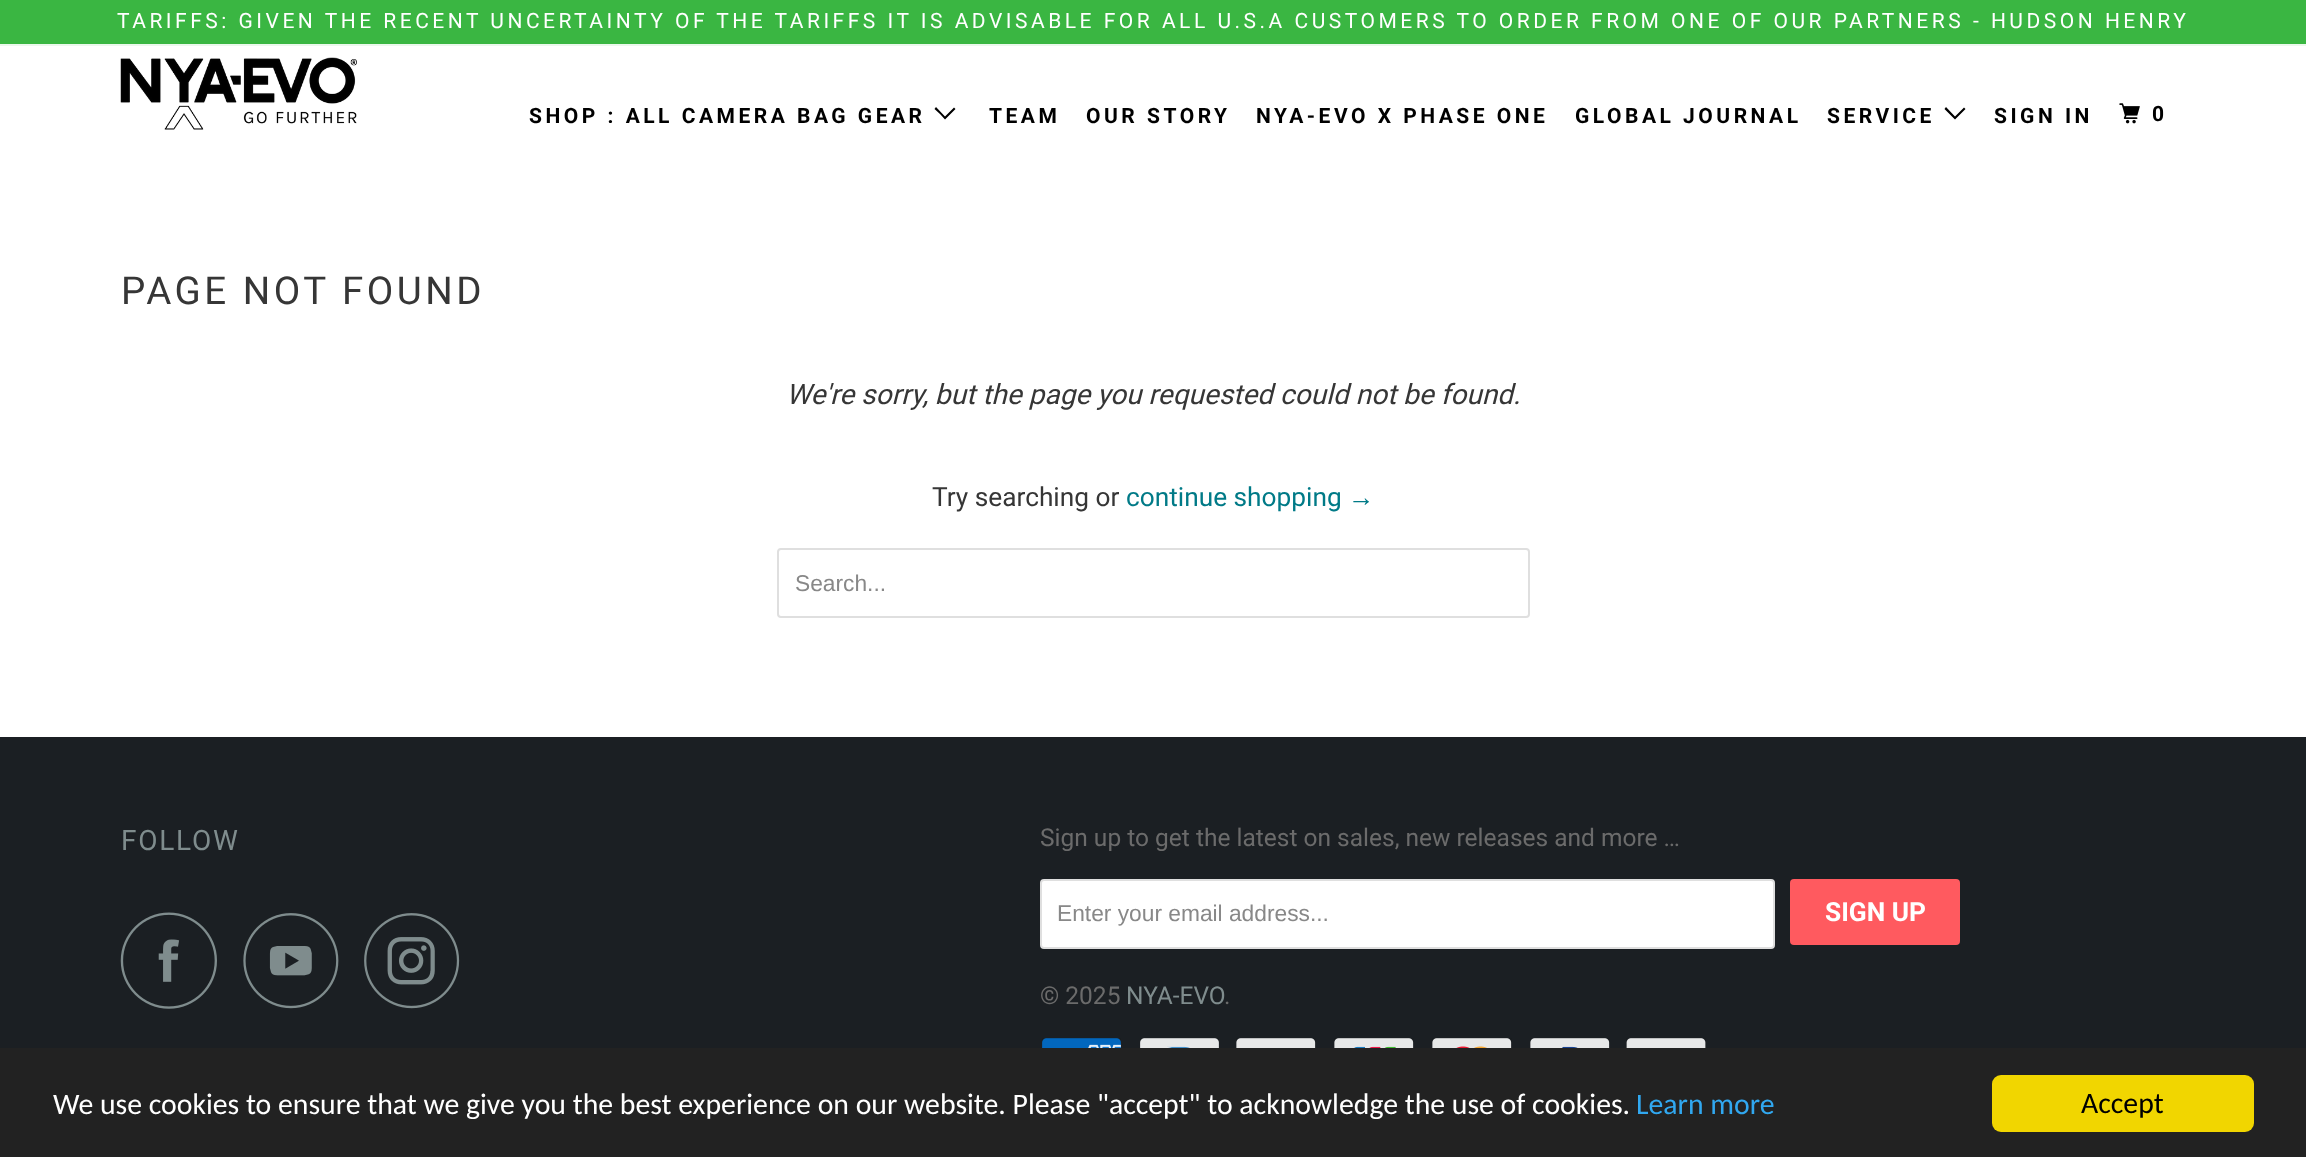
<svg xmlns="http://www.w3.org/2000/svg" width="2306" height="1157" viewBox="0 0 2306 1157">
  <style>
    .t1 { font: 21px Roboto; letter-spacing: 3.5px; fill: #fff; }
    .t2 { font: bold 21px Roboto; letter-spacing: 3.5px; fill: #000; }
    .t3 { font: 38.5px Roboto; letter-spacing: 3.5px; fill: #363636; }
    .t4 { font: italic 28px Roboto; fill: #363636; }
    .t5 { font: 26.25px Roboto; fill: #363636; }
    .t6 { font: 26.25px Roboto; fill: #007a87; }
    .t7 { font: 26.25px Liberation Serif; fill: #007a87; }
    .t8 { font: 22.75px Liberation Sans; fill: #888; }
    .t9 { font: 28px Roboto; letter-spacing: 1.75px; fill: #7f8c8d; }
    .t10 { font: 24.5px Roboto; fill: #6b6b6b; }
    .t11 { font: bold 26.25px Roboto; fill: #fff; }
    .t12 { font: 24.5px Roboto; fill: #7f8c8d; }
    .t13 { font: 29.75px Carlito; fill: #fff; }
    .t14 { font: 29.75px Carlito; fill: #31a8f0; }
    .t15 { font: 29.75px Carlito; fill: #000; }
  </style>
  <rect width="100%" height="100%" fill="#fff"/>
  <rect x="0" y="0" width="2306" height="44" fill="#3ab642"/>
  <rect x="0" y="44" width="2306" height="2" fill="#ebf8ec"/>
  <text x="117" y="28" class="t1">TARIFFS: GIVEN THE RECENT UNCERTAINTY OF THE TARIFFS IT IS ADVISABLE FOR ALL U.S.A CUSTOMERS TO ORDER FROM ONE OF OUR PARTNERS - HUDSON HENRY</text>
  <image x="120" y="57" width="237" height="73" href="images/1.png"/>
  <text x="529" y="123" class="t2">SHOP : ALL CAMERA BAG GEAR</text>
  <path d="M940 114L934.5 109L936 107L945 116.5L954 107.5L955.5 109L945 119.5Z" fill="#000"/>
  <text x="989" y="123" class="t2">TEAM</text>
  <text x="1086" y="123" class="t2">OUR STORY</text>
  <text x="1256" y="123" class="t2">NYA-EVO X PHASE ONE</text>
  <text x="1575" y="123" class="t2">GLOBAL JOURNAL</text>
  <text x="1827" y="123" class="t2">SERVICE</text>
  <path d="M1949.5 114L1944.5 109L1946 107L1955 116.5L1964 107.5L1965.5 109L1955 119.5Z" fill="#000"/>
  <text x="1994" y="123" class="t2">SIGN IN</text>
  <image x="2119" y="103" width="21" height="21" href="images/2.png"/>
  <text x="2152" y="121" class="t2">0</text>
  <text x="121" y="304" class="t3">PAGE NOT FOUND</text>
  <text x="786" y="404" class="t4">We're sorry, but the page you requested could not be found.</text>
  <text x="932" y="506" class="t5">Try searching or</text>
  <text x="1126" y="506" class="t6">continue shopping</text>
  <text x="1348" y="506" class="t7">→</text>
  <rect x="778" y="549" width="751" height="68" rx="3" fill="none" stroke="#dfdfdf" stroke-width="2"/>
  <text x="795" y="591" class="t8">Search...</text>
  <rect x="0" y="737" width="2306" height="311" fill="#1b1f23"/>
  <text x="121" y="850" class="t9">FOLLOW</text>
  <image x="120" y="912" width="97" height="97" href="images/3.png"/>
  <image x="243" y="913" width="96" height="96" href="images/4.png"/>
  <image x="364" y="913" width="96" height="96" href="images/5.png"/>
  <text x="1040" y="846" class="t10">Sign up to get the latest on sales, new releases and more …</text>
  <rect x="1041" y="880" width="733" height="68" rx="3" fill="#fff" stroke="#dfdfdf" stroke-width="2"/>
  <text x="1057" y="921" class="t8">Enter your email address...</text>
  <rect x="1790" y="879" width="170" height="66" rx="4" fill="#ff5a5f"/>
  <text x="1825" y="921" class="t11">SIGN UP</text>
  <text x="1040" y="1004" class="t10">© 2025</text>
  <text x="1126" y="1004" class="t12">NYA-EVO</text>
  <text x="1224" y="1004" class="t10">.</text>
  <image x="1042" y="1038" width="79" height="10" href="images/6.png"/>
  <image x="1140" y="1038" width="79" height="10" href="images/7.png"/>
  <image x="1236" y="1038" width="80" height="10" href="images/8.png"/>
  <image x="1334" y="1038" width="80" height="10" href="images/9.png"/>
  <image x="1432" y="1038" width="80" height="10" href="images/10.png"/>
  <image x="1530" y="1038" width="80" height="10" href="images/11.png"/>
  <image x="1626" y="1038" width="80" height="10" href="images/12.png"/>
  <rect x="0" y="1048" width="2306" height="109" fill="#222"/>
  <text x="53" y="1114" class="t13">We use cookies to ensure that we give you the best experience on our website. Please "accept" to acknowledge the use of cookies.</text>
  <text x="1636" y="1114" class="t14">Learn more</text>
  <rect x="1992" y="1075" width="262" height="57" rx="9" fill="#f1d600"/>
  <text x="2081" y="1113" class="t15">Accept</text>
</svg>
